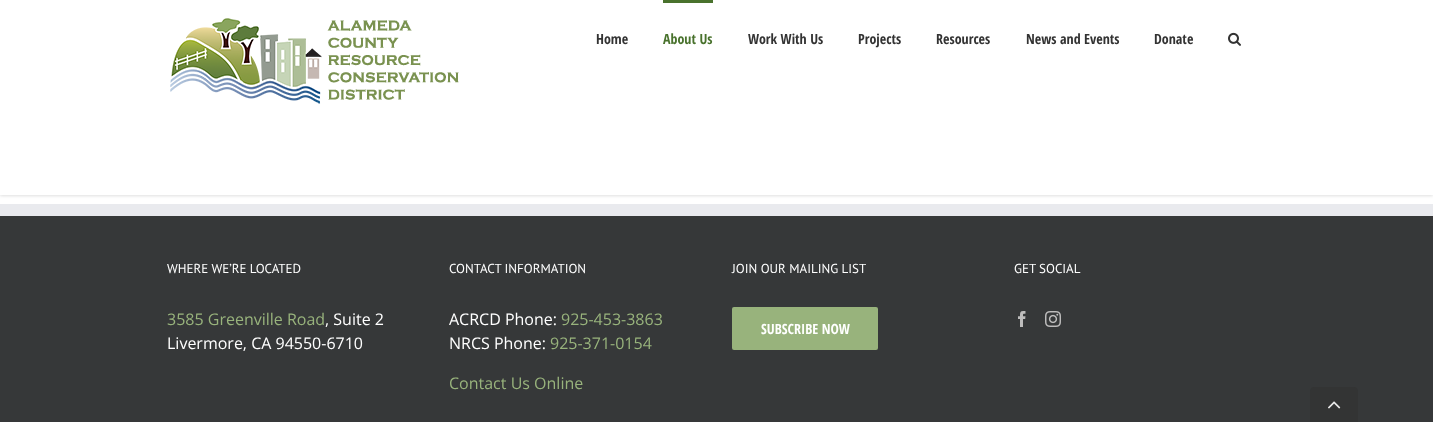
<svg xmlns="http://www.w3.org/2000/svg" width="1433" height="422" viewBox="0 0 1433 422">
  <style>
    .t1 { font: bold 14px Open Sans Condensed; fill: #333; }
    .t2 { font: bold 14px Open Sans Condensed; fill: #49722d; }
    .t3 { font: 13px PT Sans; fill: #fff; }
    .t4 { font: 16px Open Sans; fill: #98b37c; }
    .t5 { font: 16px Open Sans; fill: #fff; }
    .t6 { font: bold 14px Open Sans Condensed; fill: #fff; }
  </style>
  <rect width="100%" height="100%" fill="#fff"/>
  <rect x="0" y="1" width="1433" height="195" fill="#0000001f" filter="blur(1.5px)"/>
  <rect x="0" y="0" width="1433" height="195" fill="#fff"/>
  <image x="170" y="18" width="289" height="86" href="images/1.png"/>
  <text x="596" y="44" class="t1">Home</text>
  <rect x="663" y="0" width="50" height="3" fill="#49722d"/>
  <text x="663" y="44" class="t2">About Us</text>
  <text x="748" y="44" class="t1">Work With Us</text>
  <text x="858" y="44" class="t1">Projects</text>
  <text x="936" y="44" class="t1">Resources</text>
  <text x="1026" y="44" class="t1">News and Events</text>
  <text x="1154" y="44" class="t1">Donate</text>
  <image x="1228" y="32" width="13" height="14" href="images/2.png"/>
  <rect x="0" y="216" width="1433" height="206" fill="#363839"/>
  <rect x="0" y="204" width="1433" height="12" fill="#e9eaee"/>
  <text x="167" y="273" class="t3">WHERE WE’RE LOCATED</text>
  <text x="167" y="325" class="t4">3585 Greenville Road</text>
  <text x="325" y="325" class="t5">, Suite 2</text>
  <text x="167" y="349" class="t5">Livermore, CA 94550-6710</text>
  <text x="449" y="273" class="t3">CONTACT INFORMATION</text>
  <text x="449" y="325" class="t5">ACRCD Phone:</text>
  <text x="561" y="325" class="t4">925-453-3863</text>
  <text x="449" y="349" class="t5">NRCS Phone:</text>
  <text x="550" y="349" class="t4">925-371-0154</text>
  <text x="449" y="389" class="t4">Contact Us Online</text>
  <text x="732" y="273" class="t3">JOIN OUR MAILING LIST</text>
  <rect x="732" y="307" width="146" height="43" rx="2" fill="#98b37c"/>
  <text x="761" y="334" class="t6">SUBSCRIBE NOW</text>
  <text x="1014" y="273" class="t3">GET SOCIAL</text>
  <image x="1018" y="311" width="8" height="16" href="images/3.png"/>
  <image x="1045" y="311" width="16" height="16" href="images/4.png"/>
  <path d="M1314 387H1354C1356 387 1358 389 1358 391V422H1310V391C1310 389 1312 387 1314 387Z" fill="#333434"/>
  <image x="1328" y="401" width="13" height="8" href="images/5.png"/>
</svg>
